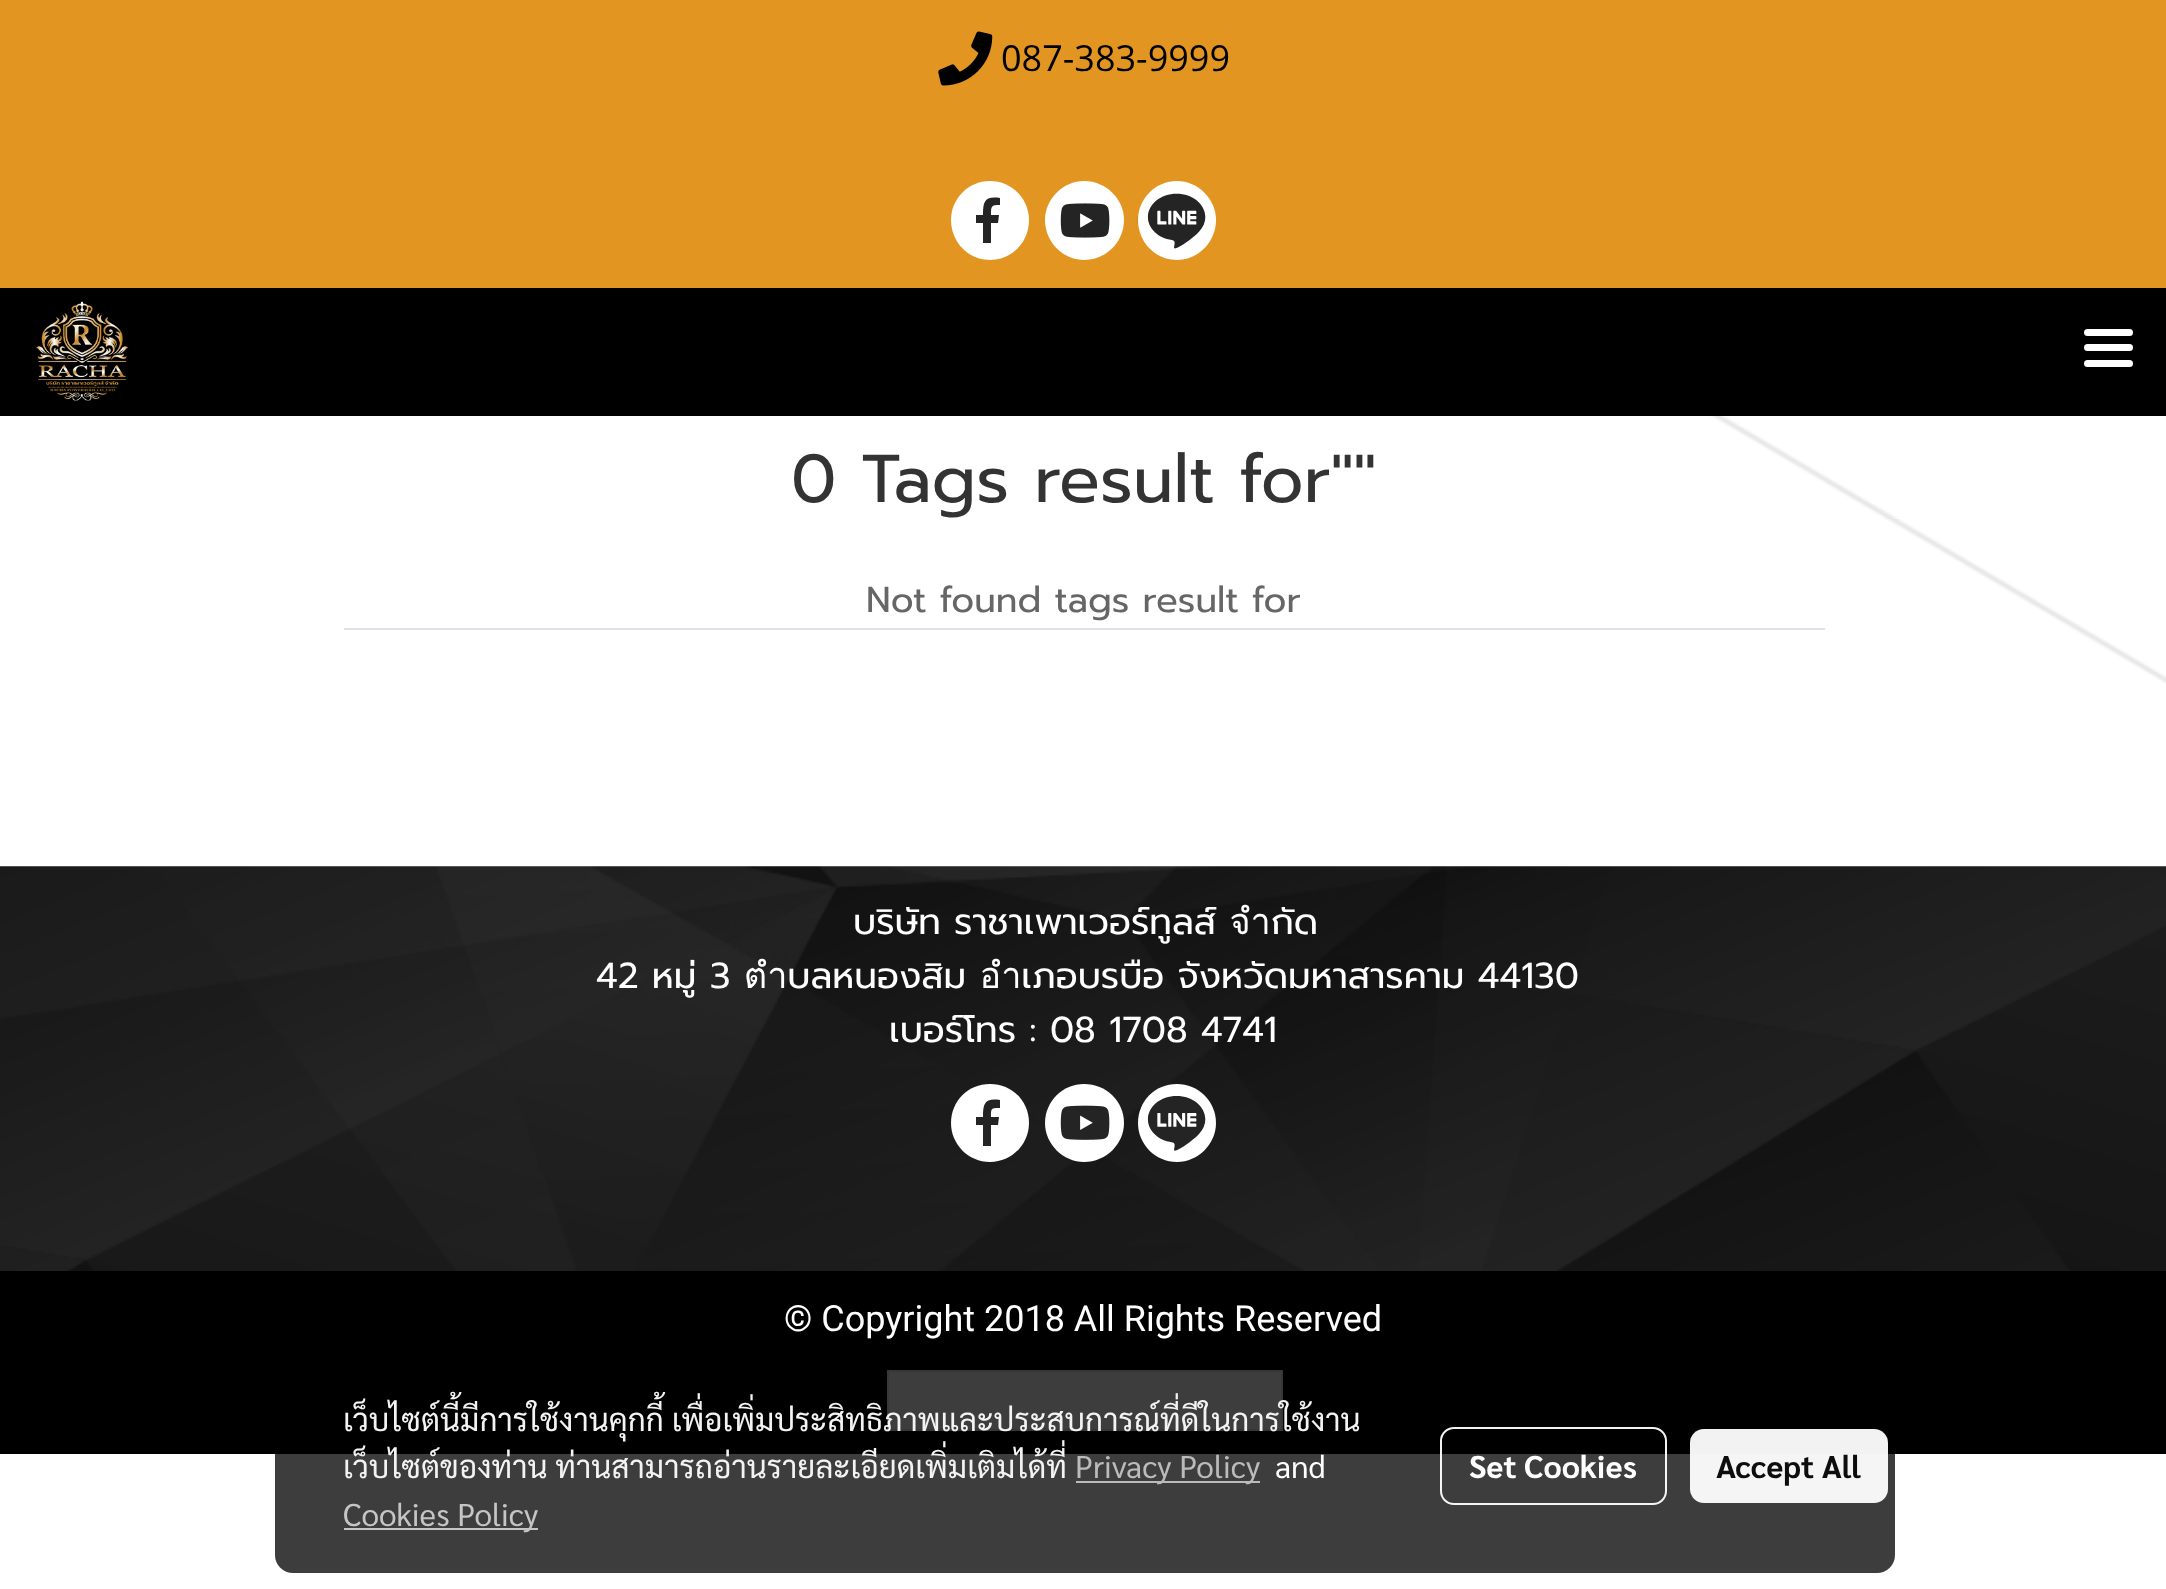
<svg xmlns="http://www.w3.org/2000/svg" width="2166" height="1589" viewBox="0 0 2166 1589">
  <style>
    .t1 { font: 36px Open Sans; fill: #000; }
    .t2 { font: 67.5px Prompt; fill: #333; }
    .t3 { font: 36px Prompt; fill: #666; }
    .t4 { font: 36px Prompt; fill: #fff; }
    .t5 { font: 36px Roboto; fill: #fff; }
    .t6 { font: 31.5px Sarabun; fill: #f3f3f3; }
    .t7 { font: 31.5px Sarabun; fill: #bbb; }
    .t8 { font: 31.5px Sarabun; fill: #fff; }
    .t9 { font: 31.5px Sarabun; fill: #c5c5c5; }
    .t10 { font: bold 31.5px Sarabun; fill: #fff; }
    .t11 { font: bold 31.5px Sarabun; fill: #0d0d0d; }
  </style>
  <rect width="100%" height="100%" fill="#fff"/>
  <image x="1006" y="416" width="1160" height="268" href="images/1.png"/>
  <rect x="0" y="288" width="2166" height="128" fill="#000"/>
  <rect x="0" y="0" width="2166" height="288" fill="#e29621"/>
  <image x="938" y="31" width="55" height="55" href="images/2.png"/>
  <text x="1001" y="71" class="t1">087-383-9999</text>
  <path d="M990 181C968 181 951 199 951 220C951 242 968 260 990 260C1012 260 1029 242 1029 220C1029 199 1012 181 990 181Z" fill="#fff"/>
  <path d="M983 243V223H976V215H983C983 201 985 196 1000 198V205C991 205 991 206 991 215H999L998 223H991V243" fill="#242424"/>
  <path d="M1084 181C1063 181 1045 199 1045 220C1045 242 1063 260 1084 260C1106 260 1124 242 1124 220C1124 199 1106 181 1084 181Z" fill="#fff"/>
  <image x="1060" y="203" width="50" height="35" href="images/3.png"/>
  <path d="M1177 181C1155 181 1138 199 1138 220C1138 242 1155 260 1177 260C1198 260 1216 242 1216 220C1216 199 1198 181 1177 181Z" fill="#fff"/>
  <image x="1137" y="193" width="69" height="56" href="images/4.png"/>
  <image x="36" y="301" width="93" height="100" href="images/5.png"/>
  <rect x="2084" y="344" width="49" height="7" rx="3.5" fill="#fff"/>
  <rect x="2084" y="329" width="49" height="7" rx="3.5" fill="#fff"/>
  <rect x="2084" y="360" width="49" height="7" rx="3.5" fill="#fff"/>
  <text x="791" y="502" class="t2">0 Tags result for""</text>
  <rect x="344" y="628" width="1481" height="2" fill="#dee2e6"/>
  <text x="866" y="612" class="t3">Not found tags result for</text>
  <image x="0" y="866" width="2166" height="405" href="images/6.png"/>
  <text x="853" y="934" class="t4">บริษัท ราชาเพาเวอร์ทูลส์ จำกัด</text>
  <text x="596" y="988" class="t4">42 หมู่ 3 ตำบลหนองสิม อำเภอบรบือ จังหวัดมหาสารคาม 44130</text>
  <text x="889" y="1042" class="t4">เบอร์โทร : 08 1708 4741</text>
  <path d="M990 1084C968 1084 951 1101 951 1123C951 1144 968 1162 990 1162C1012 1162 1029 1144 1029 1123C1029 1101 1012 1084 990 1084Z" fill="#fff"/>
  <path d="M983 1146V1125H976V1117H983C983 1103 985 1098 1000 1100V1108C991 1108 991 1108 991 1117H999L998 1125H991V1146" fill="#242424"/>
  <path d="M1084 1084C1063 1084 1045 1101 1045 1123C1045 1144 1063 1162 1084 1162C1106 1162 1124 1144 1124 1123C1124 1101 1106 1084 1084 1084Z" fill="#fff"/>
  <image x="1060" y="1105" width="50" height="35" href="images/7.png"/>
  <path d="M1177 1084C1155 1084 1138 1101 1138 1123C1138 1144 1155 1162 1177 1162C1198 1162 1216 1144 1216 1123C1216 1101 1198 1084 1177 1084Z" fill="#fff"/>
  <image x="1147" y="1096" width="59" height="55" href="images/8.png"/>
  <rect x="0" y="1271" width="2166" height="183" fill="#000"/>
  <text x="784" y="1331" class="t5">© Copyright 2018 All Rights Reserved</text>
  <rect x="888" y="1371" width="394" height="59" fill="#fff" stroke="#e5e5e5" stroke-width="2"/>
  <rect x="275" y="1359" width="1620" height="214" rx="18" fill="#000000c2"/>
  <text x="343" y="1431" class="t6">เว็บไซต์นี้มีการใช้งานคุกกี้ เพื่อเพิ่มประสิทธิภาพและประสบการณ์ที่ดีในการใช้งาน</text>
  <text x="343" y="1478" class="t6">เว็บไซต์ของท่าน ท่านสามารถอ่านรายละเอียดเพิ่มเติมได้ที่</text>
  <rect x="1076" y="1481" width="184" height="2" fill="#c2c2c2f2"/>
  <text x="1075" y="1478" class="t7">Privacy Policy</text>
  <text x="1275" y="1478" class="t8">and</text>
  <rect x="344" y="1528" width="194" height="2" fill="#c5c5c5"/>
  <text x="343" y="1526" class="t9">Cookies Policy</text>
  <rect x="1441" y="1428" width="225" height="76" rx="13" fill="none" stroke="#fffffff2" stroke-width="2"/>
  <text x="1469" y="1478" class="t10">Set Cookies</text>
  <rect x="1690" y="1429" width="198" height="74" rx="14" fill="#fffffff2"/>
  <text x="1716" y="1478" class="t11">Accept All</text>
</svg>
